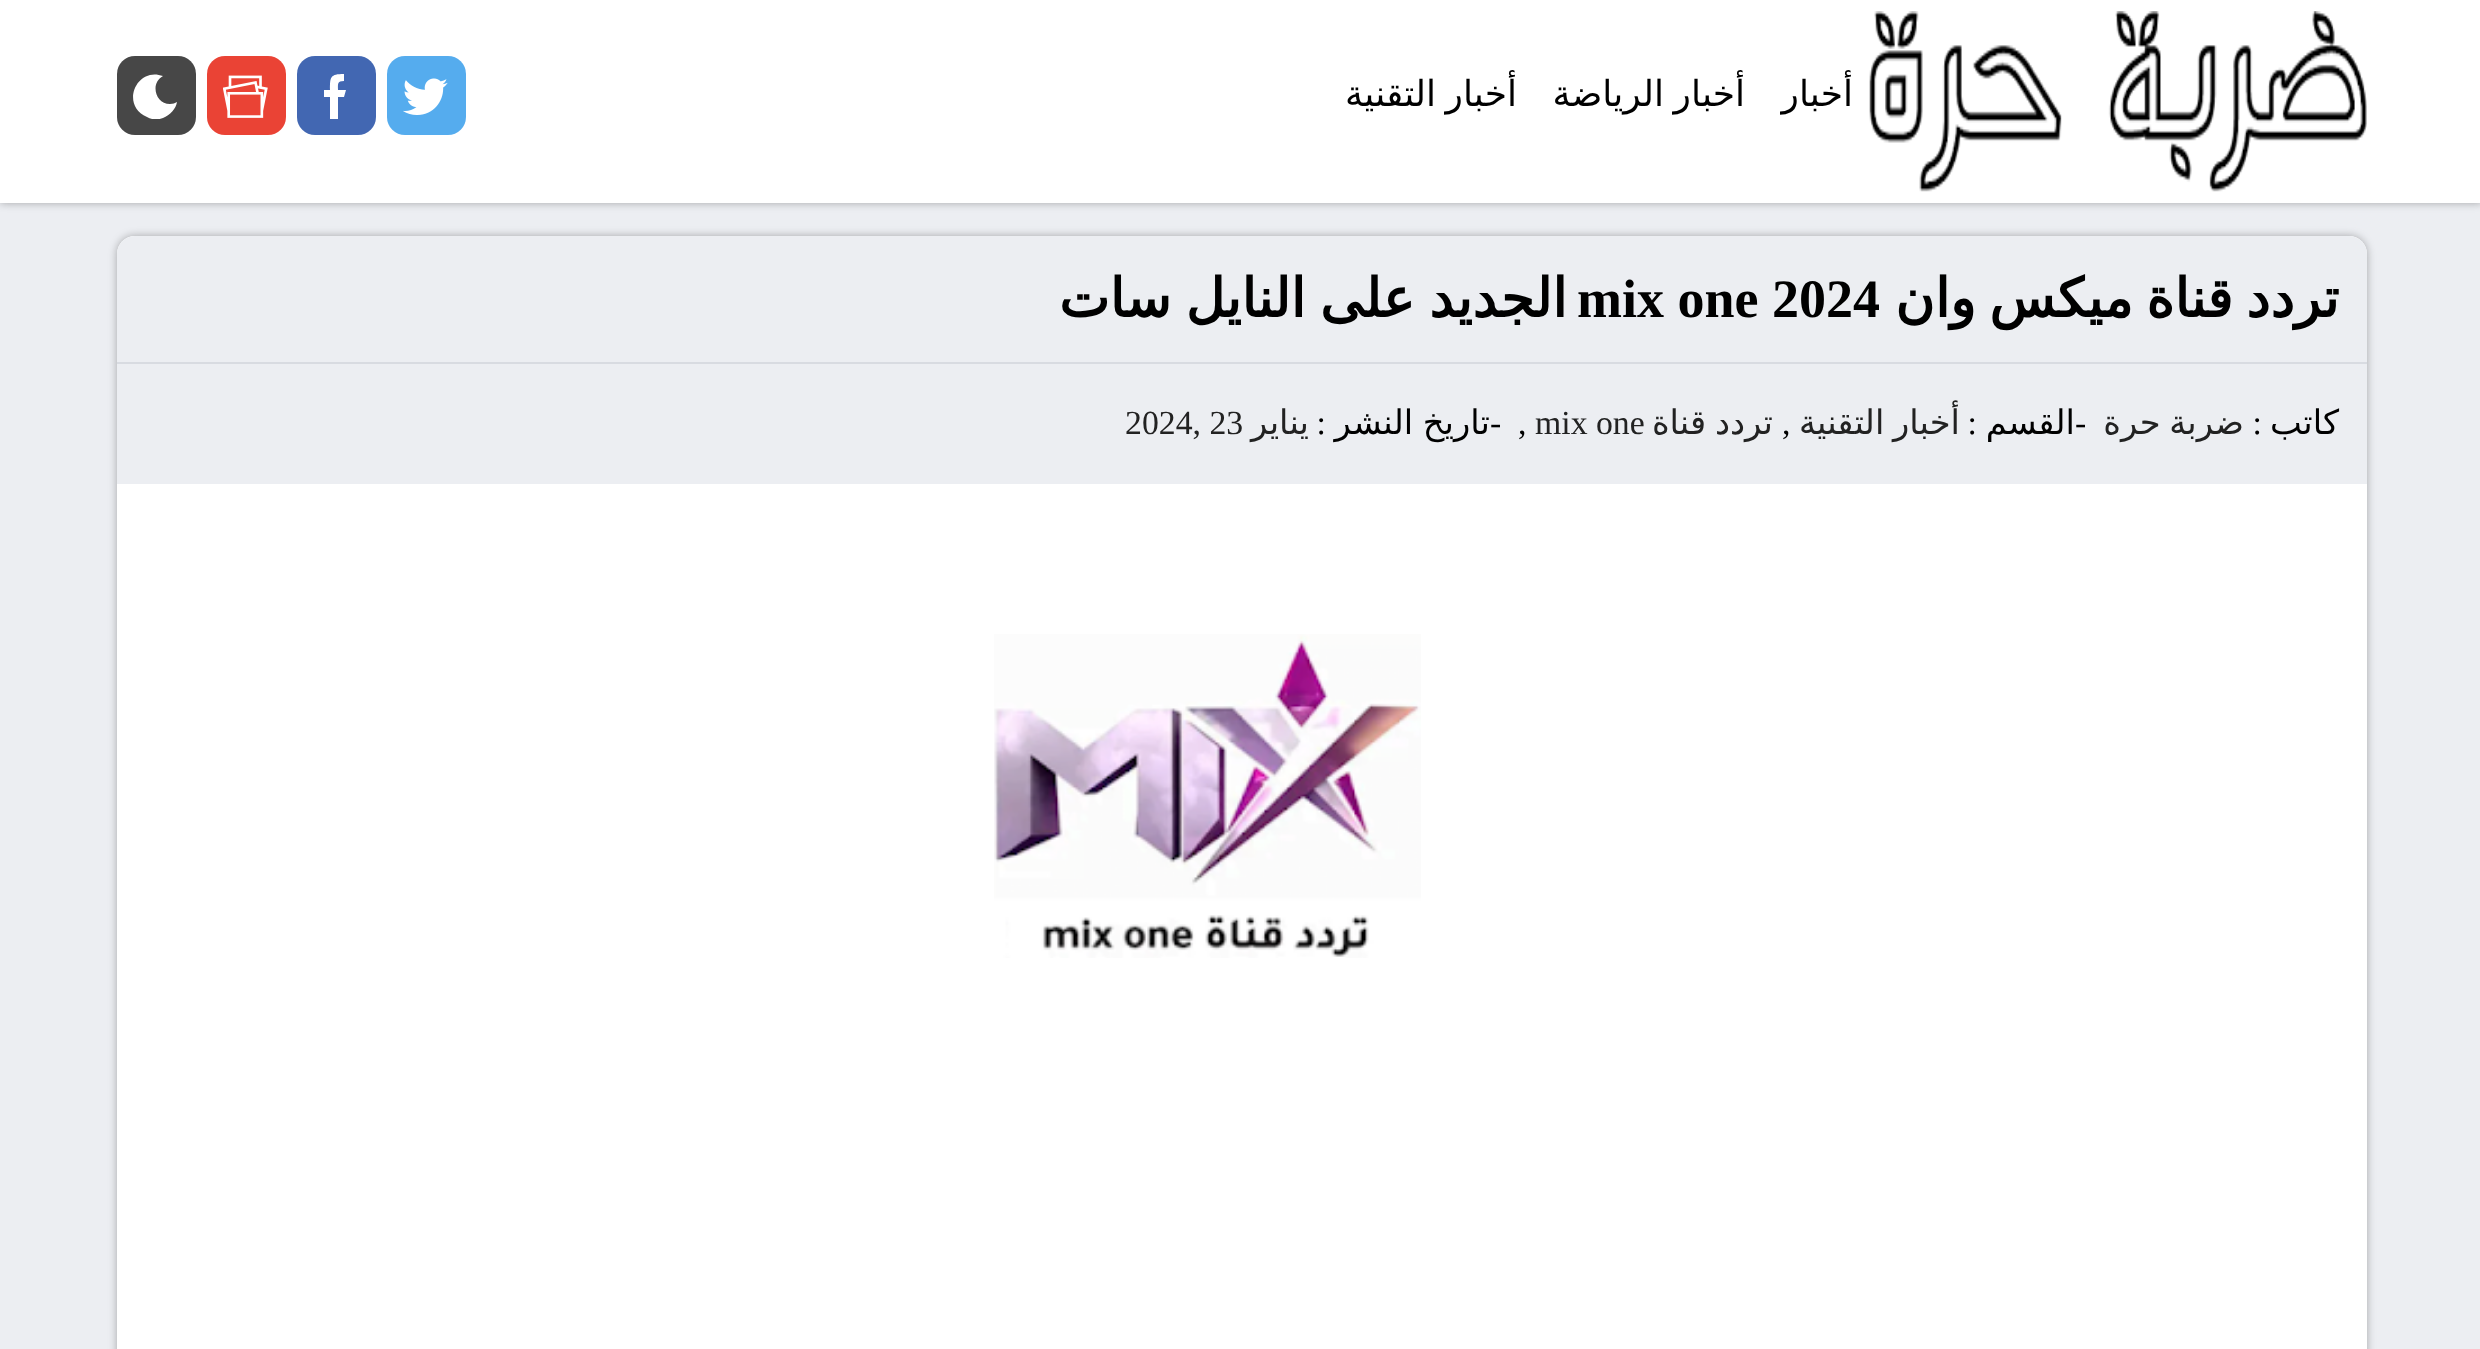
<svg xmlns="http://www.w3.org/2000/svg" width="2480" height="1349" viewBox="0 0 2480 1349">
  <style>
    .t1 { font: 36px DejaVu Sans; direction: rtl; fill: #000; }
    .t2 { font: bold 54px DejaVu Sans; direction: rtl; fill: #000; }
    .t3 { font: bold 54px Liberation Serif; fill: #000; }
    .t4 { font: 33.75px DejaVu Sans; direction: rtl; fill: #000; }
    .t5 { font: 33.75px Liberation Serif; direction: rtl; fill: #000; }
    .t6 { font: 33.75px DejaVu Sans; direction: rtl; fill: #222; }
    .t7 { font: 33.75px Liberation Serif; fill: #000; }
    .t8 { font: 33.75px Liberation Serif; fill: #222; }
  </style>
  <defs>
    <clipPath id="clip1"><rect x="133" y="74" width="45" height="45"/></clipPath>
  </defs>
  <rect width="100%" height="100%" fill="#eceef2"/>
  <rect x="0" y="0" width="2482" height="203" fill="#0000004d" filter="blur(4.5px)"/>
  <rect x="0" y="0" width="2480" height="203" fill="#fff"/>
  <image x="1869" y="11" width="498" height="181" href="images/1.png"/>
  <text x="1853" y="106" class="t1">أخبار</text>
  <text x="1745" y="106" word-spacing="-2" class="t1">أخبار الرياضة</text>
  <text x="1517" y="106" word-spacing="-2" class="t1">أخبار التقنية</text>
  <rect x="387" y="56" width="79" height="79" rx="18" fill="#55acee"/>
  <image x="403" y="78" width="45" height="37" href="images/2.png"/>
  <rect x="297" y="56" width="79" height="79" rx="18" fill="#4267b2"/>
  <path d="M338 90C338 84 337 81 344 81V74C330 74 330 77 330 90H324V97H330V119H338V97H344L346 90Z" fill="#fff"/>
  <rect x="207" y="56" width="79" height="79" rx="18" fill="#ea4335"/>
  <image x="223" y="75" width="45" height="43" href="images/3.png"/>
  <rect x="117" y="56" width="79" height="79" rx="18" fill="#474747"/>
  <g clip-path="url(#clip1)">
    <path d="M170 104C155 104 150 83 163 76C136 66 120 106 147 117C152 120 158 120 163 118C170 115 176 109 177 102C175 103 173 104 170 104Z" fill="#fff"/>
  </g>
  <rect x="117" y="236" width="2250" height="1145" rx="18" fill="#0000004d" filter="blur(4.5px)"/>
  <rect x="117" y="236" width="2250" height="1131" rx="18" fill="#fff"/>
  <path d="M135 236H2349C2359 236 2367 244 2367 254V484H117V254C117 244 125 236 135 236Z" fill="#eceef2"/>
  <text x="2339" y="317" word-spacing="-4" class="t2">تردد قناة ميكس وان</text>
  <text x="1577" y="317" class="t3">mix one 2024</text>
  <text x="1567" y="317" word-spacing="-3" class="t2">الجديد على النايل سات</text>
  <rect x="117" y="362" width="2250" height="2" fill="#d8dbe1"/>
  <text x="2339" y="434" class="t4">كاتب</text>
  <text x="2262" y="434" class="t5">:</text>
  <text x="2244" y="434" word-spacing="-2" class="t6">ضربة حرة</text>
  <text x="2075" y="434" class="t7">-</text>
  <text x="2075" y="434" class="t4">القسم</text>
  <text x="1977" y="434" class="t5">:</text>
  <text x="1960" y="434" word-spacing="-2" class="t6">أخبار التقنية</text>
  <text x="1773" y="434" word-spacing="-2" class="t6">تردد قناة</text>
  <text x="1535" y="434" class="t8">mix one</text>
  <text x="1490" y="434" class="t7">-</text>
  <text x="1490" y="434" word-spacing="-1" class="t4">تاريخ النشر</text>
  <text x="1326" y="434" class="t5">:</text>
  <text x="1309" y="434" class="t6">يناير</text>
  <text x="1125" y="434" class="t8">2024, 23</text>
  <text x="1782" y="434" class="t7">,</text>
  <text x="1518" y="434" class="t7">,</text>
  <image x="994" y="634" width="427" height="324" href="images/4.png"/>
</svg>
